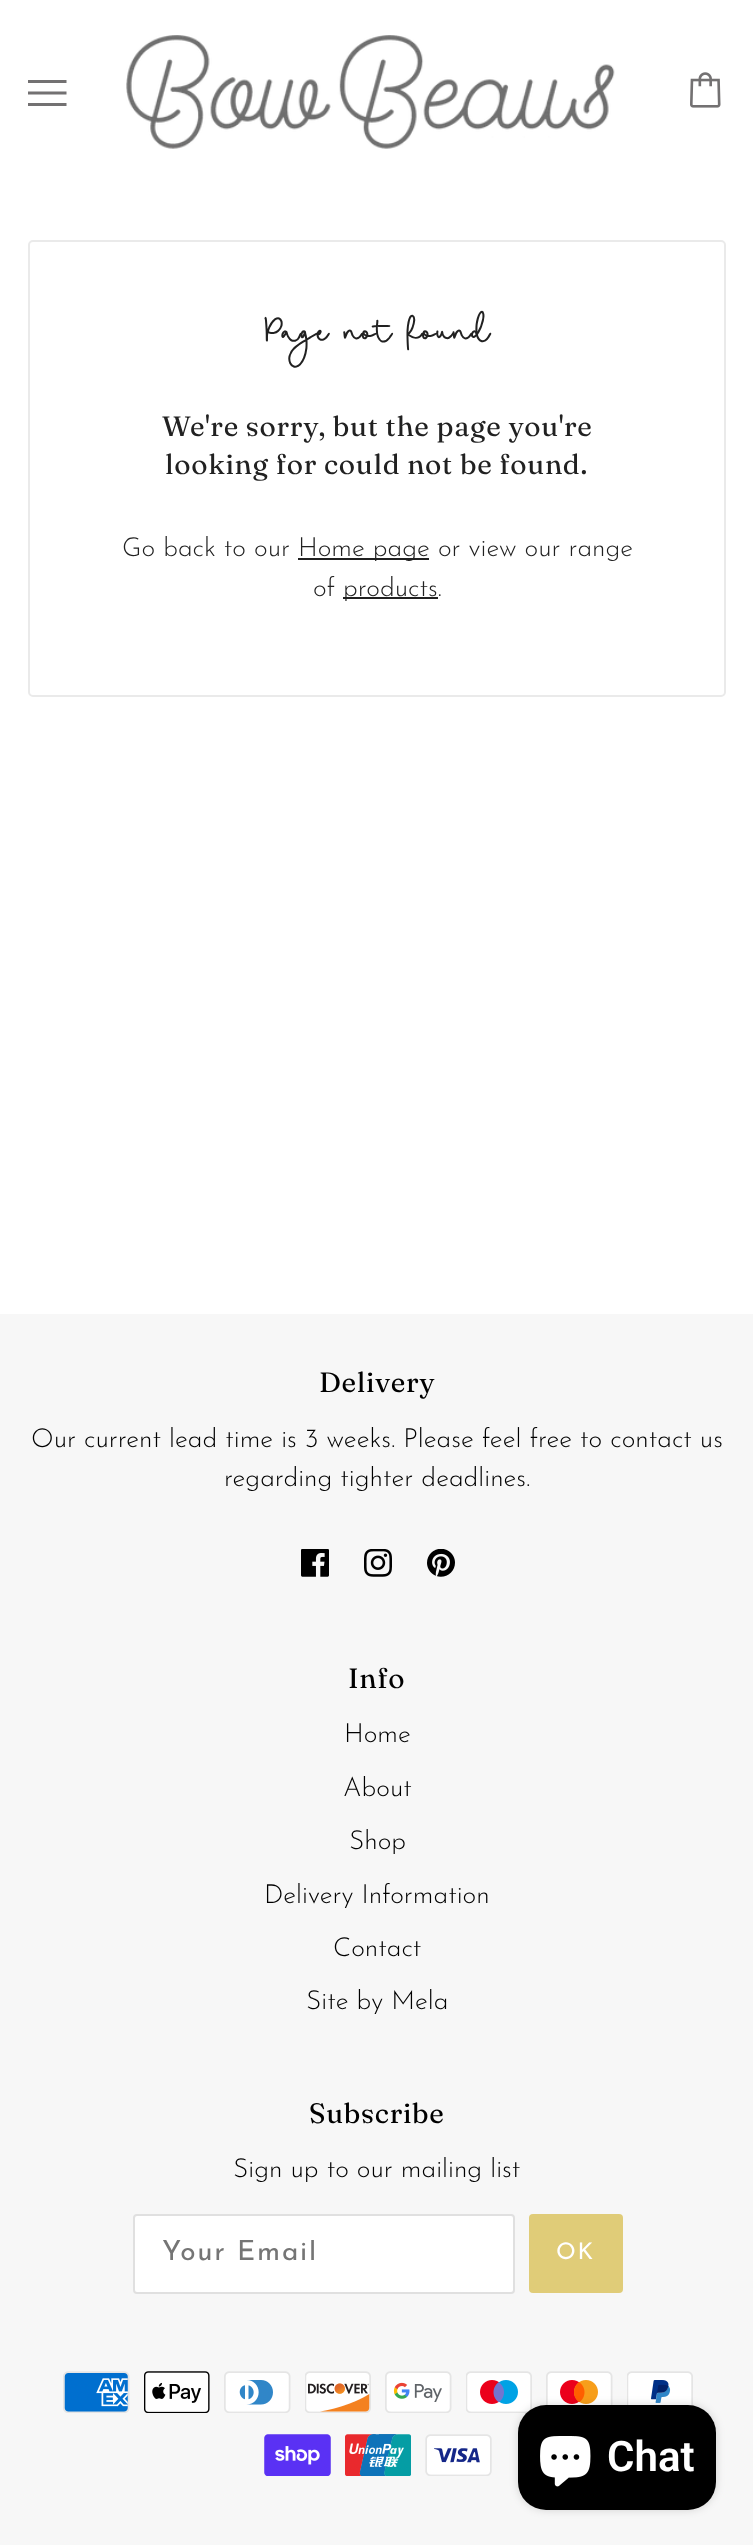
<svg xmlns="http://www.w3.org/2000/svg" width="753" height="2545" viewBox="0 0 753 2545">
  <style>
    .t1 { font: bold 35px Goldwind; letter-spacing: 0.9px; fill: #212121; }
    .t2 { font: 28px Fraunces; letter-spacing: 0.7px; fill: #212121; }
    .t3 { font: 300 26.25px Josefin Sans; fill: #212121; }
    .t4 { font: 28px Fraunces; letter-spacing: 0.7px; fill: #000; }
    .t5 { font: 300 26.25px Josefin Sans; fill: #000; }
    .t6 { font: 28px Josefin Sans; letter-spacing: 1.75px; fill: #757575; }
    .t7 { font: 23px Josefin Sans; letter-spacing: 1.75px; fill: #fff; }
    .t8 { font: 600 42px Roboto; fill: #fff; }
  </style>
  <defs>
    <clipPath id="clip1"><rect x="163" y="2240" width="322" height="28"/></clipPath>
  </defs>
  <rect width="100%" height="100%" fill="#fff"/>
  <path d="M28 83V80H66.5V83ZM28 94.5V91.5H66.5V94.5ZM28 106V103H66.5V106Z" fill="#737172"/>
  <image x="126" y="35" width="489" height="114" href="images/1.png"/>
  <image x="690" y="72" width="31" height="36" href="images/2.png"/>
  <rect x="29" y="241" width="696" height="455" rx="4" fill="none" stroke="#eaeaea" stroke-width="2"/>
  <text x="265" y="342" class="t1">Page not found</text>
  <text x="162" y="436" class="t2">We're sorry, but the page you're</text>
  <text x="165" y="474" class="t2">looking for could not be found.</text>
  <text x="122" y="556" class="t3">Go back to our</text>
  <rect x="298" y="558" width="131" height="2" fill="#212121"/>
  <text x="298" y="556" class="t3">Home page or view our range</text>
  <text x="313" y="596" class="t3">of</text>
  <rect x="343" y="597" width="95" height="2" fill="#212121"/>
  <text x="343" y="596" class="t3">products.</text>
  <rect x="0" y="1314" width="753" height="1231" fill="#f7f7f7"/>
  <text x="319" y="1392" class="t4">Delivery</text>
  <text x="31" y="1447" class="t5">Our current lead time is 3 weeks. Please feel free to contact us</text>
  <text x="224" y="1486" class="t5">regarding tighter deadlines.</text>
  <image x="301" y="1549" width="28" height="28" href="images/3.png"/>
  <image x="364" y="1549" width="28" height="28" href="images/4.png"/>
  <image x="427" y="1549" width="28" height="28" href="images/5.png"/>
  <text x="348" y="1688" class="t4">Info</text>
  <text x="344" y="1742" class="t5">Home</text>
  <text x="343" y="1796" class="t5">About</text>
  <text x="349" y="1849" class="t5">Shop</text>
  <text x="264" y="1903" class="t5">Delivery Information</text>
  <text x="333" y="1956" class="t5">Contact</text>
  <text x="306" y="2009" class="t5">Site by Mela</text>
  <text x="309" y="2123" class="t4">Subscribe</text>
  <text x="233" y="2177" class="t5">Sign up to our mailing list</text>
  <rect x="134" y="2215" width="380" height="78" rx="3" fill="#fff" stroke="#e0e0e0" stroke-width="2"/>
  <g clip-path="url(#clip1)">
    <text x="162" y="2260" class="t6">Your Email</text>
  </g>
  <rect x="529" y="2214" width="94" height="79" rx="4" fill="#e0cc78"/>
  <text x="556" y="2259" class="t7">OK</text>
  <image x="63" y="2371" width="67" height="42" href="images/6.png"/>
  <image x="144" y="2371" width="66" height="42" href="images/7.png"/>
  <image x="224" y="2371" width="67" height="42" href="images/8.png"/>
  <image x="305" y="2371" width="66" height="42" href="images/9.png"/>
  <image x="385" y="2371" width="67" height="42" href="images/10.png"/>
  <image x="466" y="2371" width="66" height="42" href="images/11.png"/>
  <image x="546" y="2371" width="67" height="34" href="images/12.png"/>
  <image x="627" y="2371" width="66" height="35" href="images/13.png"/>
  <image x="264" y="2434" width="67" height="42" href="images/14.png"/>
  <image x="345" y="2434" width="66" height="42" href="images/15.png"/>
  <image x="425" y="2434" width="67" height="42" href="images/16.png"/>
  <rect x="518" y="2405" width="198" height="105" rx="28" fill="#00000026" filter="blur(4.5px)"/>
  <rect x="518" y="2405" width="198" height="105" rx="28" fill="#000"/>
  <image x="540" y="2436" width="51" height="51" href="images/17.png"/>
  <text x="607" y="2471" class="t8">Chat</text>
</svg>
